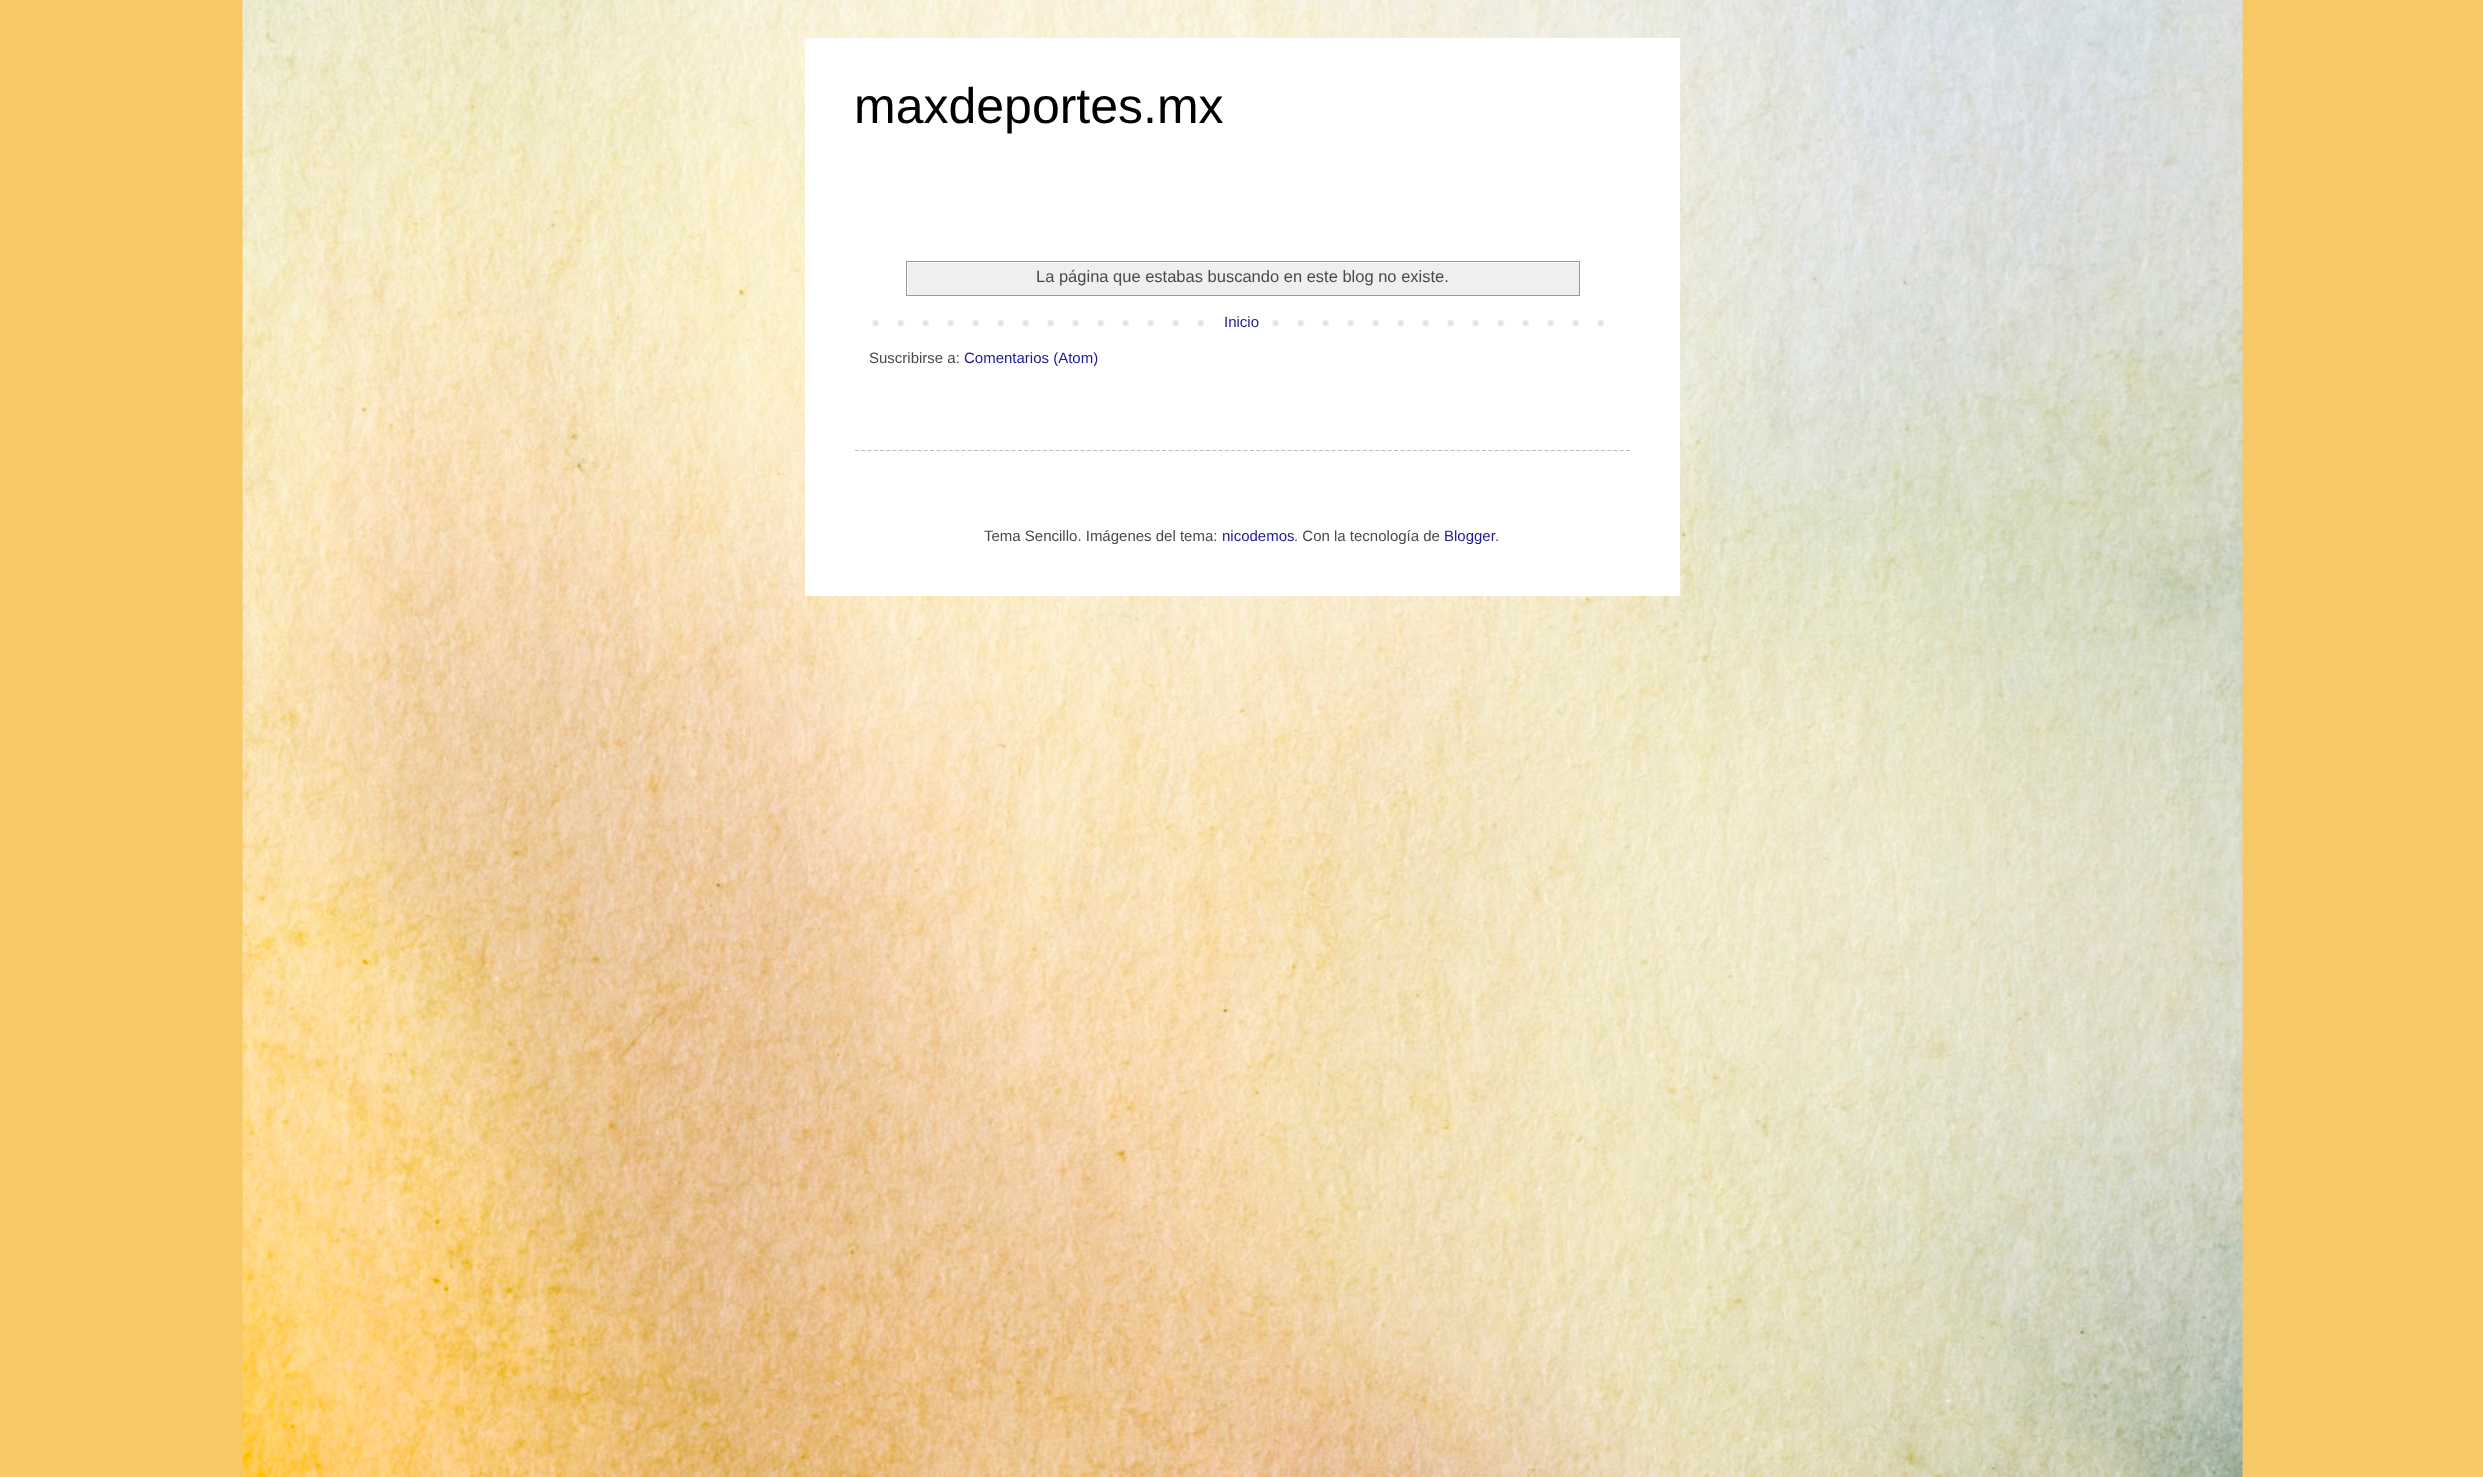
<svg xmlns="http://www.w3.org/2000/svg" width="2483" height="1477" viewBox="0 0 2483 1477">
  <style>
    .t1 { font: 50px Liberation Sans; fill: #000; }
    .t2 { font: 16.5px Liberation Sans; fill: #494949; }
    .t3 { font: 15px Liberation Sans; fill: #1d1b95; }
    .t4 { font: 15px Liberation Sans; fill: #494949; }
  </style>
  <rect width="100%" height="100%" fill="#f6c866"/>
  <image x="242" y="0" width="2001" height="1477" href="images/1.png"/>
  <rect x="805" y="38" width="875" height="558" fill="#fff"/>
  <text x="854" y="123" class="t1">maxdeportes.mx</text>
  <rect x="906.5" y="261.5" width="673" height="34" fill="none" stroke="#999"/>
  <rect x="908" y="263" width="671" height="32" fill="#efefef"/>
  <text x="1036" y="282" class="t2">La página que estabas buscando en este blog no existe.</text>
  <image x="872" y="320" width="732" height="7" href="images/2.png"/>
  <rect x="1222" y="320" width="33" height="7" fill="#fff"/>
  <text x="1224" y="327" class="t3">Inicio</text>
  <text x="869" y="363" class="t4">Suscribirse a:</text>
  <text x="964" y="363" class="t3">Comentarios (Atom)</text>
  <path d="M855 450.5H1630" fill="none" stroke="#bbb" stroke-width="1.2" stroke-dasharray="3.75 2.52"/>
  <text x="984" y="541" class="t4">Tema Sencillo. Imágenes del tema:</text>
  <text x="1222" y="541" class="t3">nicodemos</text>
  <text x="1294" y="541" class="t4">. Con la tecnología de</text>
  <text x="1444" y="541" class="t3">Blogger</text>
  <text x="1495" y="541" class="t4">.</text>
</svg>
